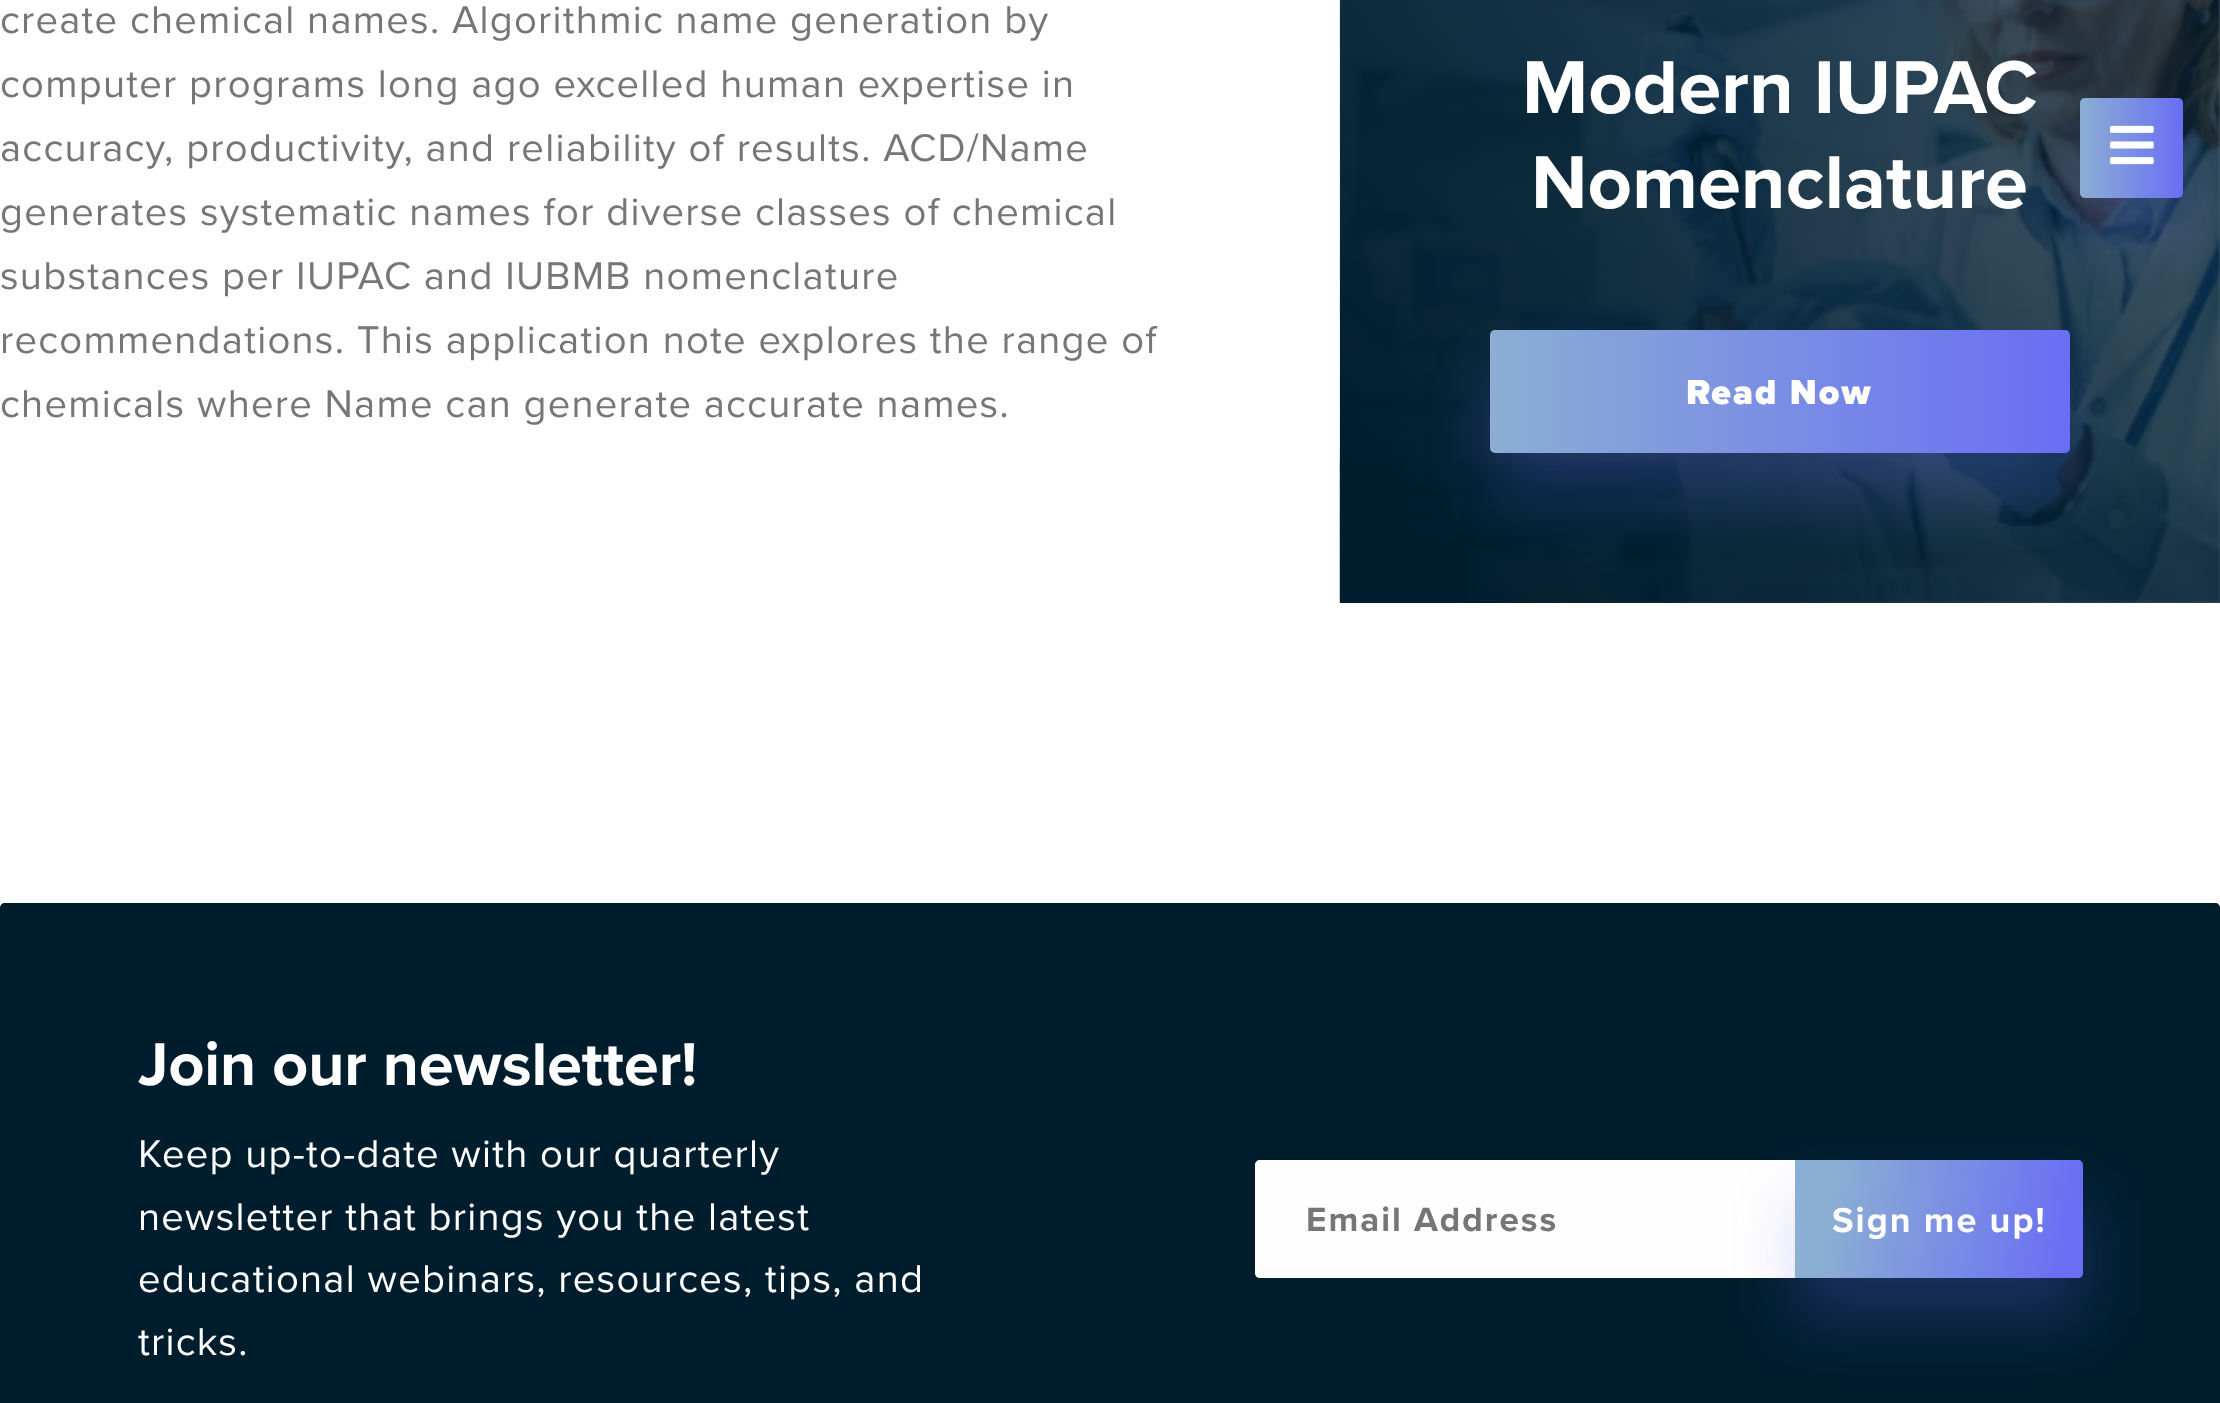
<svg xmlns="http://www.w3.org/2000/svg" width="2220" height="1403" viewBox="0 0 2220 1403">
  <style>
    .t1 { font: 40px Proxima Nova; letter-spacing: 1.25px; fill: #767676; }
    .t2 { font: bold 77.5px Proxima Nova; fill: #fff; }
    .t3 { font: 900 36px Proxima Nova; letter-spacing: 2px; fill: #fff; }
    .t4 { font: bold 62.5px Proxima Nova; fill: #fff; }
    .t5 { font: 40px Proxima Nova; letter-spacing: 1.25px; fill: #fff; }
    .t6 { font: bold 35px Proxima Nova; letter-spacing: 2px; fill: #767676; }
    .t7 { font: bold 36px Proxima Nova; letter-spacing: 2px; fill: #fff; }
  </style>
  <defs>
    <linearGradient id="g1" gradientUnits="userSpaceOnUse" x1="1336" y1="-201" x2="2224" y2="598"><stop offset="0.27" stop-color="#6a6ef4" stop-opacity="0.2"/><stop offset="0.83" stop-color="#6a6ef4" stop-opacity="0"/></linearGradient>
    <linearGradient id="g2" gradientUnits="userSpaceOnUse" x1="1305" y1="556" x2="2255" y2="-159"><stop offset="0.07" stop-color="#001d2e"/><stop offset="1" stop-color="#001d2e" stop-opacity="0.62"/></linearGradient>
    <linearGradient id="g3" gradientUnits="userSpaceOnUse" x1="1490" y1="391" x2="2070" y2="391"><stop offset="0" stop-color="#8baed4"/><stop offset="1" stop-color="#6a6ef4"/></linearGradient>
    <linearGradient id="g4" gradientUnits="userSpaceOnUse" x1="1789" y1="1193" x2="2088" y2="1244"><stop offset="0.14" stop-color="#8baed4"/><stop offset="0.94" stop-color="#6a6ef4"/></linearGradient>
    <linearGradient id="g5" gradientUnits="userSpaceOnUse" x1="2080" y1="148" x2="2183" y2="148"><stop offset="0" stop-color="#8baed4"/><stop offset="1" stop-color="#6a6ef4"/></linearGradient>
  </defs>
  <rect width="100%" height="100%" fill="#fff"/>
  <text x="0" y="33" class="t1">create chemical names. Algorithmic name generation by</text>
  <text x="0" y="97" class="t1">computer programs long ago excelled human expertise in</text>
  <text x="0" y="161" class="t1">accuracy, productivity, and reliability of results. ACD/Name</text>
  <text x="0" y="225" class="t1">generates systematic names for diverse classes of chemical</text>
  <text x="0" y="289" class="t1">substances per IUPAC and IUBMB nomenclature</text>
  <text x="0" y="353" class="t1">recommendations. This application note explores the range of</text>
  <text x="0" y="417" class="t1">chemicals where Name can generate accurate names.</text>
  <image x="1339" y="0" width="881" height="603" href="images/1.png"/>
  <rect x="1340" y="0" width="880" height="603" fill="url(#g1)"/>
  <rect x="1340" y="0" width="880" height="603" fill="url(#g2)"/>
  <text x="1522" y="113" class="t2">Modern IUPAC</text>
  <text x="1531" y="208" class="t2">Nomenclature</text>
  <rect x="1490" y="370" width="580" height="123" rx="5" fill="#6a6ef43d" filter="blur(30px)"/>
  <rect x="1490" y="330" width="580" height="123" rx="5" fill="url(#g3)"/>
  <text x="1686" y="404" class="t3">Read Now</text>
  <path d="M5 903H2215C2218 903 2220 905 2220 908V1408H0V908C0 905 2 903 5 903Z" fill="#001d2e"/>
  <text x="138" y="1085" class="t4">Join our newsletter!</text>
  <text x="138" y="1167" class="t5">Keep up-to-date with our quarterly</text>
  <text x="138" y="1230" class="t5">newsletter that brings you the latest</text>
  <text x="138" y="1292" class="t5">educational webinars, resources, tips, and</text>
  <text x="138" y="1355" class="t5">tricks.</text>
  <path d="M1260 1160H1795V1278H1260C1257 1278 1255 1276 1255 1273V1165C1255 1162 1257 1160 1260 1160Z" fill="#fefefe"/>
  <text x="1306" y="1231" class="t6">Email Address</text>
  <rect x="1795" y="1200" width="288" height="118" rx="5" fill="#6a6ef43d" filter="blur(30px)"/>
  <path d="M1795 1160H2078C2081 1160 2083 1162 2083 1165V1273C2083 1276 2081 1278 2078 1278H1795Z" fill="url(#g4)"/>
  <text x="1832" y="1232" class="t7">Sign me up!</text>
  <rect x="2080" y="138" width="103" height="100" rx="5" fill="#6a6ef43d" filter="blur(30px)"/>
  <rect x="2080" y="98" width="103" height="100" rx="5" fill="url(#g5)"/>
  <image x="2110" y="125" width="44" height="40" href="images/2.png"/>
</svg>
